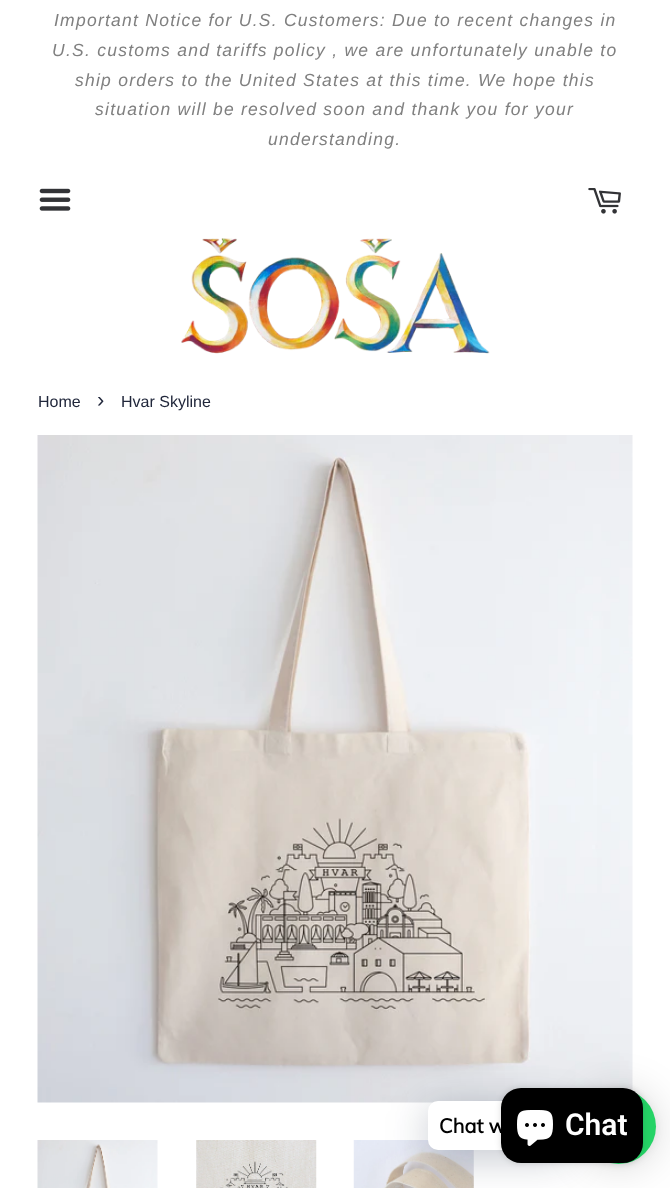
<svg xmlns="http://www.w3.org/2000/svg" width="670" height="1188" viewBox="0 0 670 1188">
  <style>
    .t1 { font: italic 17.5px Liberation Sans; letter-spacing: 1.25px; fill: #808080; }
    .t2 { font: 16px Liberation Sans; fill: #21273b; }
    .t3 { font: 22px Liberation Sans; fill: #21273b; }
    .t4 { font: bold 20px Muli; fill: #000; }
    .t5 { font: 600 30px Roboto; fill: #fff; }
  </style>
  <rect width="100%" height="100%" fill="#fff"/>
  <text x="54" y="26" class="t1">Important Notice for U.S. Customers: Due to recent changes in</text>
  <text x="52" y="56" class="t1">U.S. customs and tariffs policy , we are unfortunately unable to</text>
  <text x="75" y="86" class="t1">ship orders to the United States at this time. We hope this</text>
  <text x="95" y="115" class="t1">situation will be resolved soon and thank you for your</text>
  <text x="268" y="145" class="t1">understanding.</text>
  <image x="39" y="188" width="32" height="23" href="images/1.png"/>
  <image x="588" y="188" width="33" height="26" href="images/2.png"/>
  <image x="181" y="238" width="309" height="116" href="images/3.png"/>
  <text x="38" y="407" class="t2">Home</text>
  <text x="97" y="407" class="t3">›</text>
  <text x="121" y="407" class="t2">Hvar Skyline</text>
  <image x="37" y="435" width="596" height="668" href="images/4.png"/>
  <image x="37" y="1140" width="121" height="48" href="images/5.png"/>
  <image x="196" y="1140" width="121" height="48" href="images/6.png"/>
  <image x="353" y="1140" width="121" height="48" href="images/7.png"/>
  <rect x="581" y="1091" width="75" height="75" rx="37.5" fill="#00000029" filter="blur(20px)"/>
  <rect x="581" y="1090" width="75" height="75" rx="37.5" fill="#0000000f" filter="blur(4px)"/>
  <circle cx="618.5" cy="1126.5" r="37.5" fill="#25d366"/>
  <rect x="428" y="1109" width="141" height="49" rx="10" fill="#00122e3d" filter="blur(20px)"/>
  <rect x="428" y="1101" width="141" height="49" rx="10" fill="#fff"/>
  <text x="439" y="1133" class="t4">Chat w</text>
  <rect x="501" y="1088" width="142" height="75" rx="20" fill="#00000026" filter="blur(3px)"/>
  <rect x="501" y="1088" width="142" height="75" rx="20" fill="#000"/>
  <image x="517" y="1110" width="36" height="36" href="images/8.png"/>
  <text x="565" y="1135" class="t5">Chat</text>
</svg>
